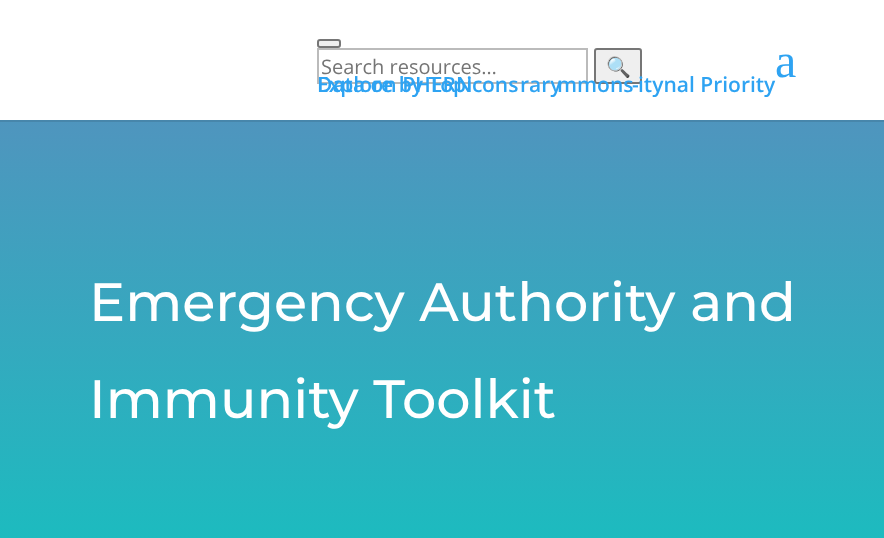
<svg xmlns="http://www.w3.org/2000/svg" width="884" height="538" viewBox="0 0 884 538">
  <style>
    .t1 { font: 20px Open Sans; fill: #757575; }
    .t2 { font: 20px Noto Color Emoji; fill: #000; }
    .t3 { font: 600 21px Open Sans; fill: #2ea3f2; }
    .t4 { font: 48px Liberation Serif; fill: #2ea3f2; }
    .t5 { font: 500 54px Montserrat; fill: #fff; }
  </style>
  <defs>
    <linearGradient id="g1" gradientUnits="userSpaceOnUse" x1="443" y1="120" x2="443" y2="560"><stop offset="0" stop-color="#4f95be"/><stop offset="1" stop-color="#1abdbf"/></linearGradient>
  </defs>
  <rect width="100%" height="100%" fill="#fff"/>
  <rect x="0" y="120" width="884" height="2" fill="#4786ab"/>
  <rect x="318" y="40" width="22" height="7" rx="2" fill="#efefef" stroke="#767676" stroke-width="2"/>
  <rect x="318" y="49" width="269" height="34" fill="none" stroke="#bbb" stroke-width="2"/>
  <text x="321" y="74" class="t1">Search resources…</text>
  <rect x="595" y="49" width="46" height="34" rx="2" fill="#efefef" stroke="#767676" stroke-width="2"/>
  <text x="606" y="74" class="t2">🔍</text>
  <text x="317" y="92" class="t3">Explore by Topic</text>
  <text x="317" y="92" class="t3">Data on PHERN</text>
  <text x="482" y="92" class="t3">ons</text>
  <text x="520" y="92" class="t3">rary</text>
  <text x="557" y="92" class="t3">mmons</text>
  <text x="632" y="92" class="t3">-</text>
  <text x="638" y="92" class="t3">itynal Priority</text>
  <text x="775" y="77" class="t4">a</text>
  <rect x="0" y="122" width="884" height="416" fill="url(#g1)"/>
  <text x="89" y="321" class="t5">Emergency Authority and</text>
  <text x="89" y="418" class="t5">Immunity Toolkit</text>
</svg>
